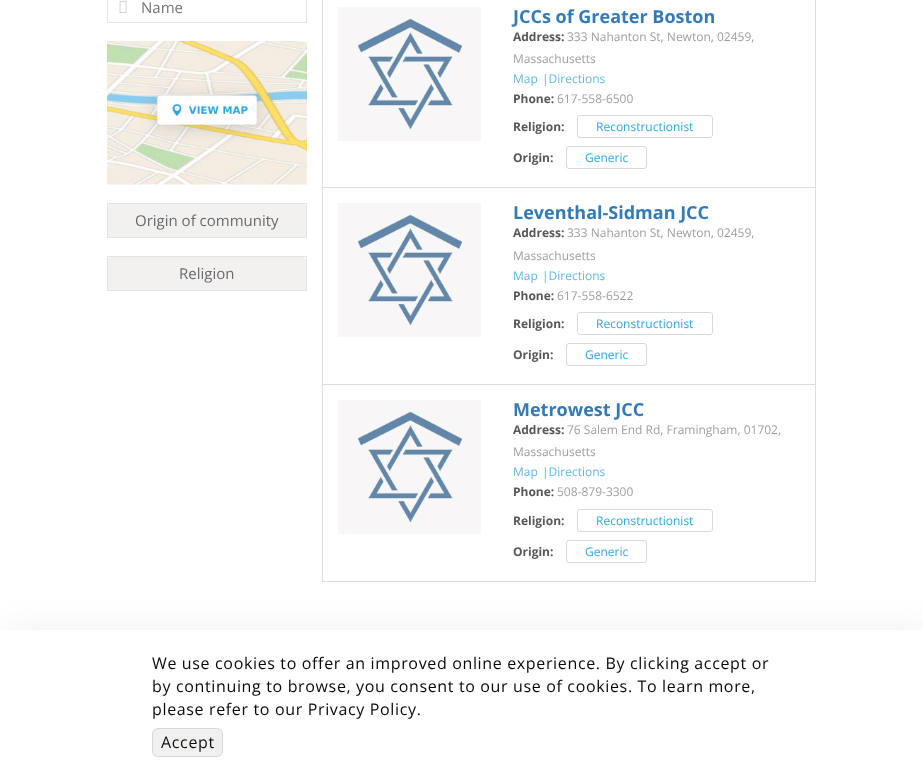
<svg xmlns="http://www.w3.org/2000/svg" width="923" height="779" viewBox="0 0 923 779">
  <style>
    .t1 { font: 15px Open Sans; fill: #757575; }
    .t2 { font: 15px Open Sans; fill: #6b6a6b; }
    .t3 { font: bold 18px Open Sans; fill: #337ab7; }
    .t4 { font: bold 12px Open Sans; fill: #585758; }
    .t5 { font: 12px Open Sans; fill: #9e9e9e; }
    .t6 { font: 12px Open Sans; fill: #61b7e3; }
    .t7 { font: 12px Open Sans; fill: #2fa6de; }
    .t8 { font: 16px Open Sans; letter-spacing: 0.65px; fill: #07090a; }
    .t9 { font: 16px Open Sans; letter-spacing: 0.65px; fill: #0e1213; }
  </style>
  <rect width="100%" height="100%" fill="#fff"/>
  <rect x="107.5" y="-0.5" width="199" height="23" fill="none" stroke="#e3e4e4"/>
  <image x="119" y="0" width="8" height="13" href="images/1.png"/>
  <text x="141" y="13" class="t1">Name</text>
  <image x="107" y="41" width="200" height="144" href="images/2.png"/>
  <rect x="107.5" y="203.5" width="199" height="34" fill="none" stroke="#e3e4e4"/>
  <path d="M111 204H303C304.5 204 306 205.5 306 207V237H108V207C108 205.5 109.5 204 111 204Z" fill="#f2f1f0"/>
  <text x="135" y="226" class="t2">Origin of community</text>
  <rect x="107.5" y="256.5" width="199" height="34" fill="none" stroke="#e3e4e4"/>
  <path d="M111 257H303C304.5 257 306 258.5 306 260V290H108V260C108 258.5 109.5 257 111 257Z" fill="#f2f1f0"/>
  <text x="179" y="279" class="t2">Religion</text>
  <rect x="815" y="0" width="1" height="582" fill="#e0ddd9"/>
  <rect x="322" y="0" width="1" height="582" fill="#e0ddd9"/>
  <rect x="323" y="187" width="492" height="1" fill="#e0ddd9"/>
  <image x="338" y="7" width="143" height="134" href="images/3.png"/>
  <text x="513" y="23" class="t3">JCCs of Greater Boston</text>
  <text x="513" y="41" class="t4">Address:</text>
  <text x="567" y="41" class="t5">333 Nahanton St, Newton, 02459,</text>
  <text x="513" y="63" class="t5">Massachusetts</text>
  <text x="513" y="83" class="t6">Map</text>
  <text x="542" y="83" class="t6">|Directions</text>
  <text x="513" y="103" class="t4">Phone:</text>
  <text x="557" y="103" class="t5">617-558-6500</text>
  <text x="513" y="131" class="t4">Religion:</text>
  <rect x="577.5" y="115.5" width="135" height="22" rx="2.5" fill="none" stroke="#d7d9d8"/>
  <text x="596" y="131" class="t7">Reconstructionist</text>
  <text x="513" y="162" class="t4">Origin:</text>
  <rect x="566.5" y="146.5" width="80" height="22" rx="2.5" fill="none" stroke="#d7d9d8"/>
  <text x="585" y="162" class="t7">Generic</text>
  <rect x="323" y="384" width="492" height="1" fill="#e0ddd9"/>
  <image x="338" y="203" width="143" height="134" href="images/4.png"/>
  <text x="513" y="219" class="t3">Leventhal-Sidman JCC</text>
  <text x="513" y="237" class="t4">Address:</text>
  <text x="567" y="237" class="t5">333 Nahanton St, Newton, 02459,</text>
  <text x="513" y="260" class="t5">Massachusetts</text>
  <text x="513" y="280" class="t6">Map</text>
  <text x="542" y="280" class="t6">|Directions</text>
  <text x="513" y="300" class="t4">Phone:</text>
  <text x="557" y="300" class="t5">617-558-6522</text>
  <text x="513" y="328" class="t4">Religion:</text>
  <rect x="577.5" y="312.5" width="135" height="22" rx="2.5" fill="none" stroke="#d7d9d8"/>
  <text x="596" y="328" class="t7">Reconstructionist</text>
  <text x="513" y="359" class="t4">Origin:</text>
  <rect x="566.5" y="343.5" width="80" height="22" rx="2.5" fill="none" stroke="#d7d9d8"/>
  <text x="585" y="359" class="t7">Generic</text>
  <rect x="323" y="581" width="492" height="1" fill="#e0ddd9"/>
  <image x="338" y="400" width="143" height="134" href="images/4.png"/>
  <text x="513" y="416" class="t3">Metrowest JCC</text>
  <text x="513" y="434" class="t4">Address:</text>
  <text x="567" y="434" class="t5">76 Salem End Rd, Framingham, 01702,</text>
  <text x="513" y="456" class="t5">Massachusetts</text>
  <text x="513" y="476" class="t6">Map</text>
  <text x="542" y="476" class="t6">|Directions</text>
  <text x="513" y="496" class="t4">Phone:</text>
  <text x="557" y="496" class="t5">508-879-3300</text>
  <text x="513" y="525" class="t4">Religion:</text>
  <rect x="577.5" y="509.5" width="135" height="22" rx="2.5" fill="none" stroke="#d7d9d8"/>
  <text x="596" y="525" class="t7">Reconstructionist</text>
  <text x="513" y="556" class="t4">Origin:</text>
  <rect x="566.5" y="540.5" width="80" height="22" rx="2.5" fill="none" stroke="#d7d9d8"/>
  <text x="585" y="556" class="t7">Generic</text>
  <rect x="7" y="628" width="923" height="149" fill="#0000000f" filter="blur(17px)"/>
  <rect x="0" y="630" width="923" height="149" fill="#fff"/>
  <text x="152" y="669" class="t8">We use cookies to offer an improved online experience. By clicking accept or</text>
  <text x="152" y="692" class="t8">by continuing to browse, you consent to our use of cookies. To learn more,</text>
  <text x="152" y="715" class="t8">please refer to our Privacy Policy.</text>
  <rect x="152" y="728" width="71" height="29" rx="6" fill="#f1f0ef"/>
  <rect x="152.5" y="728.5" width="70" height="28" rx="5.5" fill="none" stroke="#0000001a"/>
  <text x="161" y="748" class="t9">Accept</text>
</svg>
